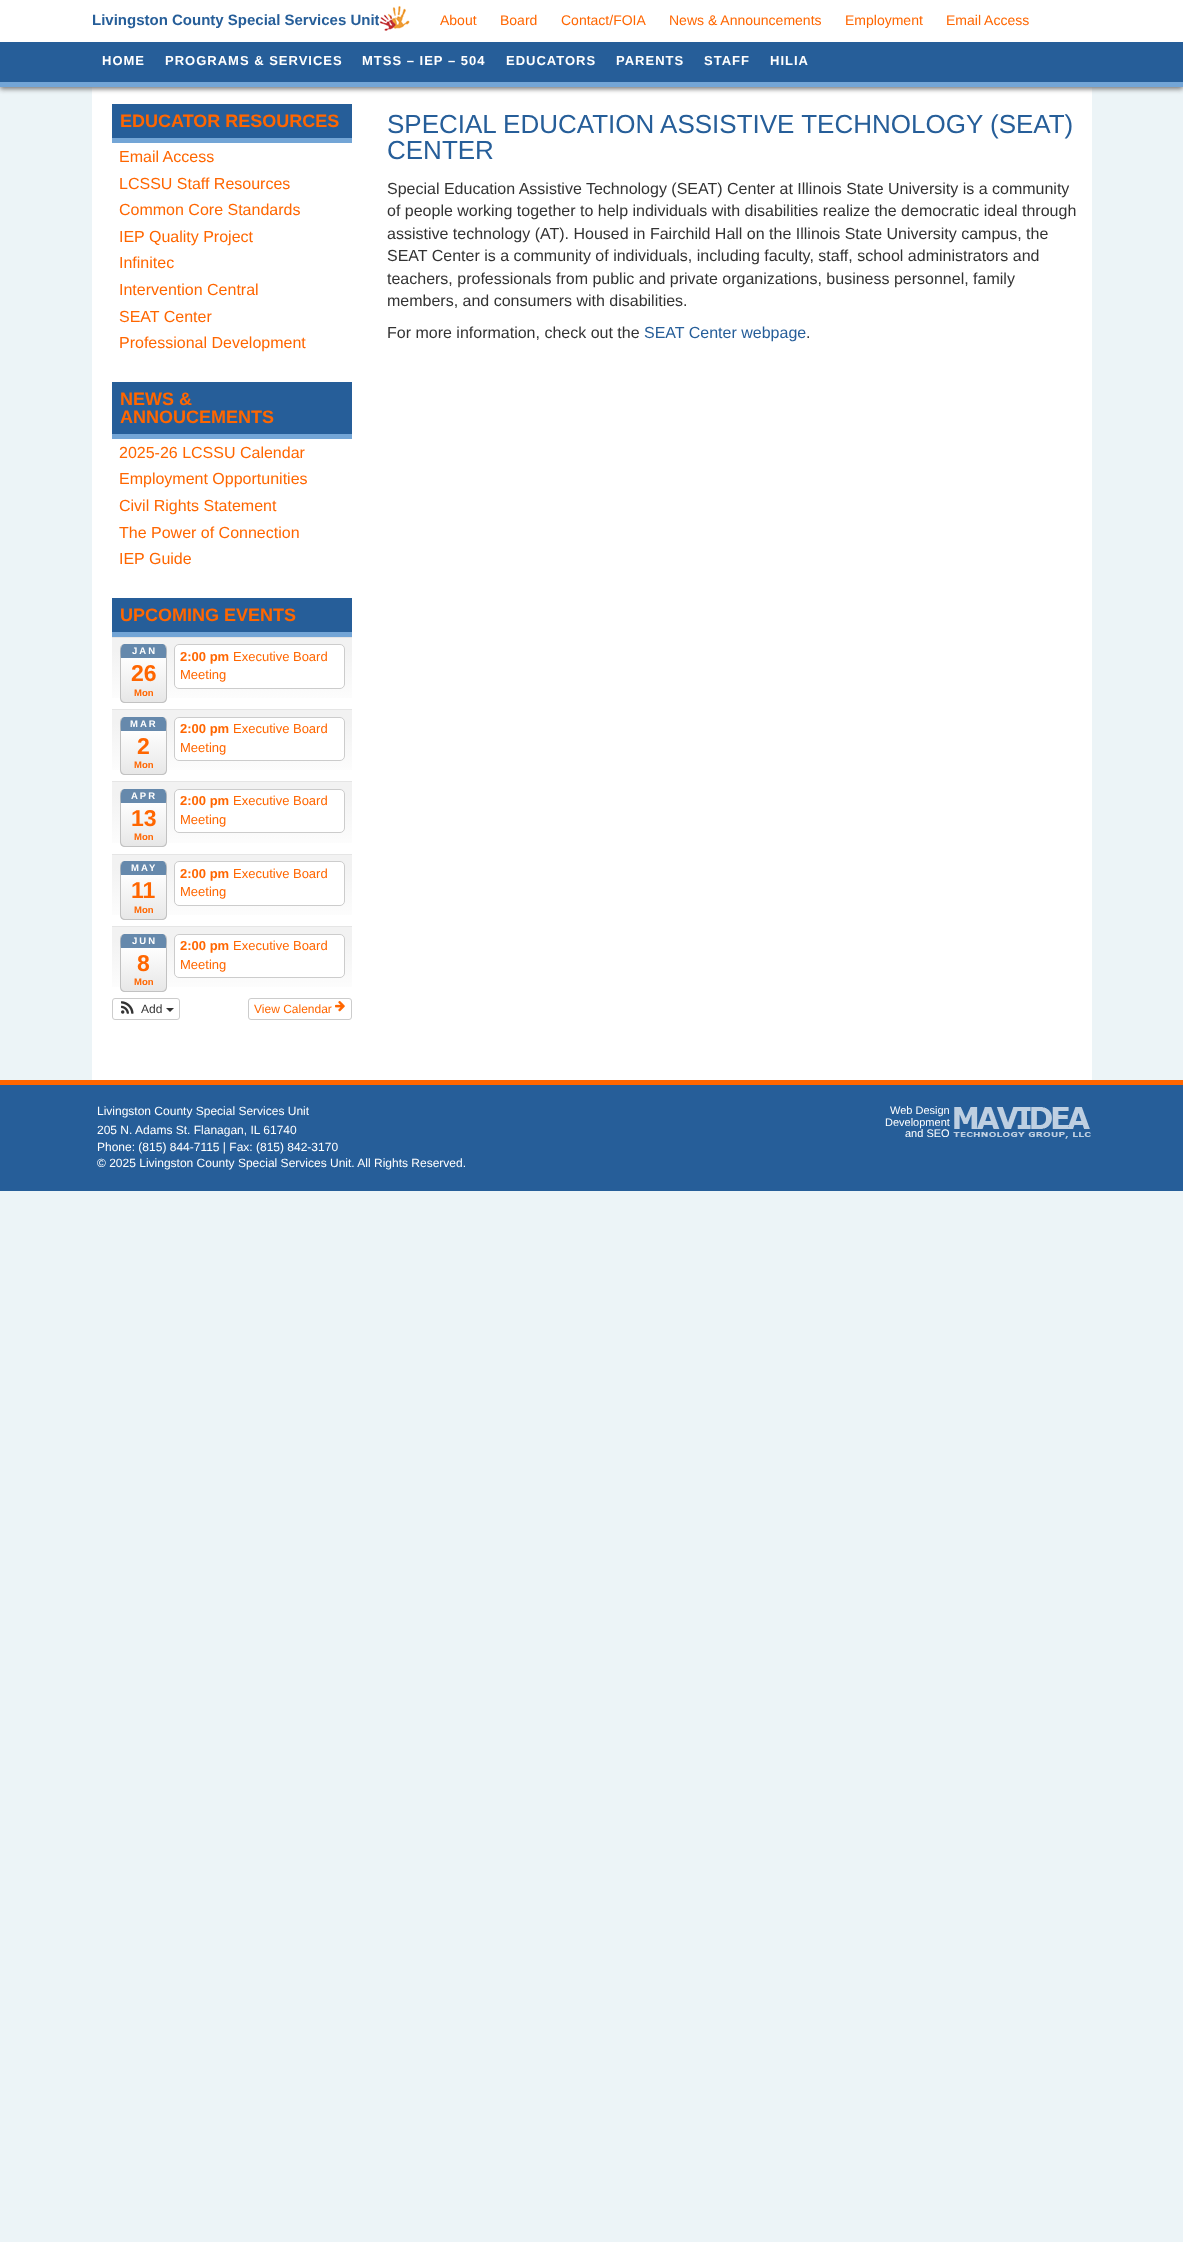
<svg xmlns="http://www.w3.org/2000/svg" width="1183" height="2242" viewBox="0 0 1183 2242">
  <style>
    .t1 { font: bold 15px Liberation Sans; fill: #265e99; }
    .t2 { font: 14px Liberation Sans; fill: #f60; }
    .t3 { font: bold 13px Liberation Sans; letter-spacing: 1px; fill: #fff; }
    .t4 { font: bold 18px Liberation Sans; fill: #f60; }
    .t5 { font: 16px Liberation Sans; fill: #f60; }
    .t6 { font: bold 9.5px Liberation Sans; letter-spacing: 2px; fill: #fff; }
    .t7 { font: bold 23px Liberation Sans; fill: #f60; }
    .t8 { font: bold 9.5px Liberation Sans; fill: #f60; }
    .t9 { font: bold 13px Liberation Sans; fill: #f60; }
    .t10 { font: 13px Liberation Sans; fill: #f60; }
    .t11 { font: 12px Liberation Sans; fill: #333; }
    .t12 { font: 12px Liberation Sans; fill: #f60; }
    .t13 { font: 26px Liberation Sans; fill: #265e99; }
    .t14 { font: 16px Liberation Sans; fill: #333; }
    .t15 { font: 16px Liberation Sans; fill: #265e99; }
    .t16 { font: 12px Liberation Sans; fill: #fff; }
    .t17 { font: 11px Liberation Sans; fill: #fff; }
  </style>
  <defs>
    <linearGradient id="g1" gradientUnits="userSpaceOnUse" x1="232" y1="638" x2="232" y2="709"><stop offset="0" stop-color="#f2f2f2"/><stop offset="0.18" stop-color="#f2f2f2"/><stop offset="1" stop-color="#fff"/></linearGradient>
    <clipPath id="clip1"><rect x="120" y="644" width="47" height="59" rx="5"/></clipPath>
    <linearGradient id="g2" gradientUnits="userSpaceOnUse" x1="144" y1="644" x2="144" y2="702"><stop offset="0" stop-color="#fff"/><stop offset="0.2" stop-color="#fff"/><stop offset="1" stop-color="#e7e7e7"/></linearGradient>
    <linearGradient id="g3" gradientUnits="userSpaceOnUse" x1="232" y1="710" x2="232" y2="781"><stop offset="0" stop-color="#f2f2f2"/><stop offset="0.18" stop-color="#f2f2f2"/><stop offset="1" stop-color="#fff"/></linearGradient>
    <clipPath id="clip2"><rect x="120" y="717" width="47" height="58" rx="5"/></clipPath>
    <linearGradient id="g4" gradientUnits="userSpaceOnUse" x1="144" y1="717" x2="144" y2="774"><stop offset="0" stop-color="#fff"/><stop offset="0.21" stop-color="#fff"/><stop offset="1" stop-color="#e7e7e7"/></linearGradient>
    <linearGradient id="g5" gradientUnits="userSpaceOnUse" x1="232" y1="782" x2="232" y2="854"><stop offset="0" stop-color="#f2f2f2"/><stop offset="0.18" stop-color="#f2f2f2"/><stop offset="1" stop-color="#fff"/></linearGradient>
    <clipPath id="clip3"><rect x="120" y="789" width="47" height="58" rx="5"/></clipPath>
    <linearGradient id="g6" gradientUnits="userSpaceOnUse" x1="144" y1="789" x2="144" y2="846"><stop offset="0" stop-color="#fff"/><stop offset="0.21" stop-color="#fff"/><stop offset="1" stop-color="#e7e7e7"/></linearGradient>
    <linearGradient id="g7" gradientUnits="userSpaceOnUse" x1="232" y1="855" x2="232" y2="926"><stop offset="0" stop-color="#f2f2f2"/><stop offset="0.18" stop-color="#f2f2f2"/><stop offset="1" stop-color="#fff"/></linearGradient>
    <clipPath id="clip4"><rect x="120" y="861" width="47" height="59" rx="5"/></clipPath>
    <linearGradient id="g8" gradientUnits="userSpaceOnUse" x1="144" y1="861" x2="144" y2="919"><stop offset="0" stop-color="#fff"/><stop offset="0.2" stop-color="#fff"/><stop offset="1" stop-color="#e7e7e7"/></linearGradient>
    <linearGradient id="g9" gradientUnits="userSpaceOnUse" x1="232" y1="927" x2="232" y2="998"><stop offset="0" stop-color="#f2f2f2"/><stop offset="0.18" stop-color="#f2f2f2"/><stop offset="1" stop-color="#fff"/></linearGradient>
    <clipPath id="clip5"><rect x="120" y="934" width="47" height="58" rx="5"/></clipPath>
    <linearGradient id="g10" gradientUnits="userSpaceOnUse" x1="144" y1="934" x2="144" y2="991"><stop offset="0" stop-color="#fff"/><stop offset="0.21" stop-color="#fff"/><stop offset="1" stop-color="#e7e7e7"/></linearGradient>
  </defs>
  <rect width="100%" height="100%" fill="#ecf4f7"/>
  <rect x="92" y="87" width="1000" height="993" fill="#fff"/>
  <rect x="0" y="42" width="1183" height="47" fill="#777" filter="blur(2.5px)"/>
  <rect x="0" y="0" width="1183" height="42" fill="#fff"/>
  <text x="92" y="25" class="t1">Livingston County Special Services Unit</text>
  <image x="379" y="6" width="31" height="25" href="images/1.png"/>
  <text x="440" y="25" class="t2">About</text>
  <text x="500" y="25" class="t2">Board</text>
  <text x="561" y="25" class="t2">Contact/FOIA</text>
  <text x="669" y="25" class="t2">News &amp; Announcements</text>
  <text x="845" y="25" class="t2">Employment</text>
  <text x="946" y="25" class="t2">Email Access</text>
  <rect x="0" y="42" width="1183" height="40" fill="#265e99"/>
  <rect x="0" y="82" width="1183" height="5" fill="#73a5d6"/>
  <text x="102" y="65" class="t3">HOME</text>
  <text x="165" y="65" class="t3">PROGRAMS &amp; SERVICES</text>
  <text x="362" y="65" class="t3">MTSS – IEP – 504</text>
  <text x="506" y="65" class="t3">EDUCATORS</text>
  <text x="616" y="65" class="t3">PARENTS</text>
  <text x="704" y="65" class="t3">STAFF</text>
  <text x="770" y="65" class="t3">HILIA</text>
  <rect x="112" y="104" width="240" height="34" fill="#265e99"/>
  <rect x="112" y="138" width="240" height="5" fill="#73a5d6"/>
  <text x="120" y="127" class="t4">EDUCATOR RESOURCES</text>
  <text x="119" y="162" class="t5">Email Access</text>
  <text x="119" y="189" class="t5">LCSSU Staff Resources</text>
  <text x="119" y="215" class="t5">Common Core Standards</text>
  <text x="119" y="242" class="t5">IEP Quality Project</text>
  <text x="119" y="268" class="t5">Infinitec</text>
  <text x="119" y="295" class="t5">Intervention Central</text>
  <text x="119" y="322" class="t5">SEAT Center</text>
  <text x="119" y="348" class="t5">Professional Development</text>
  <rect x="112" y="382" width="240" height="52" fill="#265e99"/>
  <rect x="112" y="434" width="240" height="5" fill="#73a5d6"/>
  <text x="120" y="405" class="t4">NEWS &amp;</text>
  <text x="120" y="423" class="t4">ANNOUCEMENTS</text>
  <text x="119" y="458" class="t5">2025-26 LCSSU Calendar</text>
  <text x="119" y="484" class="t5">Employment Opportunities</text>
  <text x="119" y="511" class="t5">Civil Rights Statement</text>
  <text x="119" y="538" class="t5">The Power of Connection</text>
  <text x="119" y="564" class="t5">IEP Guide</text>
  <rect x="112" y="598" width="240" height="34" fill="#265e99"/>
  <rect x="112" y="632" width="240" height="5" fill="#73a5d6"/>
  <text x="120" y="621" class="t4">UPCOMING EVENTS</text>
  <rect x="112" y="638" width="240" height="60" fill="url(#g1)"/>
  <rect x="112" y="637" width="240" height="1" fill="#e5e5e5"/>
  <g clip-path="url(#clip1)">
    <rect x="121" y="644" width="45" height="58" fill="url(#g2)"/>
  </g>
  <path d="M125 644H162C165 644 167 646 167 649V698C167 701 165 703 162 703H125C122 703 120 701 120 698V649C120 646 122 644 125 644ZM125 644H162C164 644 166 646 166 649V698C166 700 164 702 162 702H125C123 702 121 700 121 698V649C121 646 123 644 125 644Z" fill="#c2c2c2" fill-rule="evenodd"/>
  <path d="M125 644C119 644 121 655 121 658H166C166 655 168 644 162 644Z" fill="#6689ac"/>
  <text x="132" y="654" class="t6">JAN</text>
  <text x="131" y="681" class="t7">26</text>
  <text x="134" y="696" class="t8">Mon</text>
  <rect x="174.5" y="644.5" width="170" height="44" rx="4.5" fill="#fff" stroke="#ccc"/>
  <text x="180" y="661" class="t9">2:00 pm</text>
  <text x="233" y="661" class="t10">Executive Board</text>
  <text x="180" y="679" class="t10">Meeting</text>
  <rect x="112" y="710" width="240" height="60" fill="url(#g3)"/>
  <rect x="112" y="709" width="240" height="1" fill="#e5e5e5"/>
  <g clip-path="url(#clip2)">
    <rect x="121" y="717" width="45" height="57" fill="url(#g4)"/>
  </g>
  <path d="M125 717H162C165 717 167 719 167 722V770C167 773 165 775 162 775H125C122 775 120 773 120 770V722C120 719 122 717 125 717ZM125 717H162C164 717 166 719 166 722V770C166 772 164 774 162 774H125C123 774 121 772 121 770V722C121 719 123 717 125 717Z" fill="#c2c2c2" fill-rule="evenodd"/>
  <path d="M125 717C119 717 121 728 121 731H166C166 728 168 717 162 717Z" fill="#6689ac"/>
  <text x="130" y="727" class="t6">MAR</text>
  <text x="137" y="754" class="t7">2</text>
  <text x="134" y="768" class="t8">Mon</text>
  <rect x="174.5" y="717.5" width="170" height="43" rx="4.5" fill="#fff" stroke="#ccc"/>
  <text x="180" y="733" class="t9">2:00 pm</text>
  <text x="233" y="733" class="t10">Executive Board</text>
  <text x="180" y="752" class="t10">Meeting</text>
  <rect x="112" y="782" width="240" height="61" fill="url(#g5)"/>
  <rect x="112" y="781" width="240" height="1" fill="#e5e5e5"/>
  <g clip-path="url(#clip3)">
    <rect x="121" y="789" width="45" height="57" fill="url(#g6)"/>
  </g>
  <path d="M125 789H162C165 789 167 791 167 794V842C167 845 165 847 162 847H125C122 847 120 845 120 842V794C120 791 122 789 125 789ZM125 789H162C164 789 166 791 166 794V842C166 844 164 846 162 846H125C123 846 121 844 121 842V794C121 791 123 789 125 789Z" fill="#c2c2c2" fill-rule="evenodd"/>
  <path d="M125 789C119 789 121 800 121 803H166C166 800 168 789 162 789Z" fill="#6689ac"/>
  <text x="131" y="799" class="t6">APR</text>
  <text x="131" y="826" class="t7">13</text>
  <text x="134" y="840" class="t8">Mon</text>
  <rect x="174.5" y="789.5" width="170" height="43" rx="4.5" fill="#fff" stroke="#ccc"/>
  <text x="180" y="805" class="t9">2:00 pm</text>
  <text x="233" y="805" class="t10">Executive Board</text>
  <text x="180" y="824" class="t10">Meeting</text>
  <rect x="112" y="855" width="240" height="60" fill="url(#g7)"/>
  <rect x="112" y="854" width="240" height="1" fill="#e5e5e5"/>
  <g clip-path="url(#clip4)">
    <rect x="121" y="861" width="45" height="58" fill="url(#g8)"/>
  </g>
  <path d="M125 861H162C165 861 167 863 167 866V915C167 918 165 920 162 920H125C122 920 120 918 120 915V866C120 863 122 861 125 861ZM125 861H162C164 861 166 863 166 866V915C166 917 164 919 162 919H125C123 919 121 917 121 915V866C121 863 123 861 125 861Z" fill="#c2c2c2" fill-rule="evenodd"/>
  <path d="M125 861C119 861 121 872 121 875H166C166 872 168 861 162 861Z" fill="#6689ac"/>
  <text x="131" y="871" class="t6">MAY</text>
  <text x="131" y="898" class="t7">11</text>
  <text x="134" y="913" class="t8">Mon</text>
  <rect x="174.5" y="861.5" width="170" height="44" rx="4.5" fill="#fff" stroke="#ccc"/>
  <text x="180" y="878" class="t9">2:00 pm</text>
  <text x="233" y="878" class="t10">Executive Board</text>
  <text x="180" y="896" class="t10">Meeting</text>
  <rect x="112" y="927" width="240" height="60" fill="url(#g9)"/>
  <rect x="112" y="926" width="240" height="1" fill="#e5e5e5"/>
  <g clip-path="url(#clip5)">
    <rect x="121" y="934" width="45" height="57" fill="url(#g10)"/>
  </g>
  <path d="M125 934H162C165 934 167 936 167 939V987C167 990 165 992 162 992H125C122 992 120 990 120 987V939C120 936 122 934 125 934ZM125 934H162C164 934 166 936 166 939V987C166 989 164 991 162 991H125C123 991 121 989 121 987V939C121 936 123 934 125 934Z" fill="#c2c2c2" fill-rule="evenodd"/>
  <path d="M125 934C119 934 121 945 121 948H166C166 945 168 934 162 934Z" fill="#6689ac"/>
  <text x="132" y="944" class="t6">JUN</text>
  <text x="137" y="971" class="t7">8</text>
  <text x="134" y="985" class="t8">Mon</text>
  <rect x="174.5" y="934.5" width="170" height="43" rx="4.5" fill="#fff" stroke="#ccc"/>
  <text x="180" y="950" class="t9">2:00 pm</text>
  <text x="233" y="950" class="t10">Executive Board</text>
  <text x="180" y="969" class="t10">Meeting</text>
  <rect x="112.5" y="998.5" width="67" height="21" rx="2.5" fill="none" stroke="#ccc"/>
  <image x="121" y="1001" width="13" height="13" href="images/2.png"/>
  <text x="141" y="1013" class="t11">Add</text>
  <path d="M166 1008H174L170 1012Z" fill="#333"/>
  <rect x="248.5" y="998.5" width="103" height="21" rx="2.5" fill="none" stroke="#ccc"/>
  <text x="254" y="1013" class="t12">View Calendar</text>
  <image x="335" y="1001" width="10" height="11" href="images/3.png"/>
  <text x="387" y="133" class="t13">SPECIAL EDUCATION ASSISTIVE TECHNOLOGY (SEAT)</text>
  <text x="387" y="159" class="t13">CENTER</text>
  <text x="387" y="194" class="t14">Special Education Assistive Technology (SEAT) Center at Illinois State University is a community</text>
  <text x="387" y="216" class="t14">of people working together to help individuals with disabilities realize the democratic ideal through</text>
  <text x="387" y="239" class="t14">assistive technology (AT). Housed in Fairchild Hall on the Illinois State University campus, the</text>
  <text x="387" y="261" class="t14">SEAT Center is a community of individuals, including faculty, staff, school administrators and</text>
  <text x="387" y="284" class="t14">teachers, professionals from public and private organizations, business personnel, family</text>
  <text x="387" y="306" class="t14">members, and consumers with disabilities.</text>
  <text x="387" y="338" class="t14">For more information, check out the</text>
  <text x="644" y="338" class="t15">SEAT Center webpage</text>
  <text x="806" y="338" class="t14">.</text>
  <rect x="0" y="1085" width="1183" height="106" fill="#265e99"/>
  <rect x="0" y="1080" width="1183" height="5" fill="#f60"/>
  <text x="97" y="1115" class="t16">Livingston County Special Services Unit</text>
  <text x="97" y="1134" class="t16">205 N. Adams St. Flanagan, IL 61740</text>
  <text x="97" y="1151" class="t16">Phone: (815) 844-7115 | Fax: (815) 842-3170</text>
  <text x="97" y="1167" class="t16">© 2025 Livingston County Special Services Unit. All Rights Reserved.</text>
  <text x="890" y="1114" class="t17">Web Design</text>
  <text x="885" y="1126" class="t17">Development</text>
  <text x="905" y="1137" class="t17">and SEO</text>
  <image x="953" y="1107" width="138" height="32" href="images/4.png"/>
</svg>
